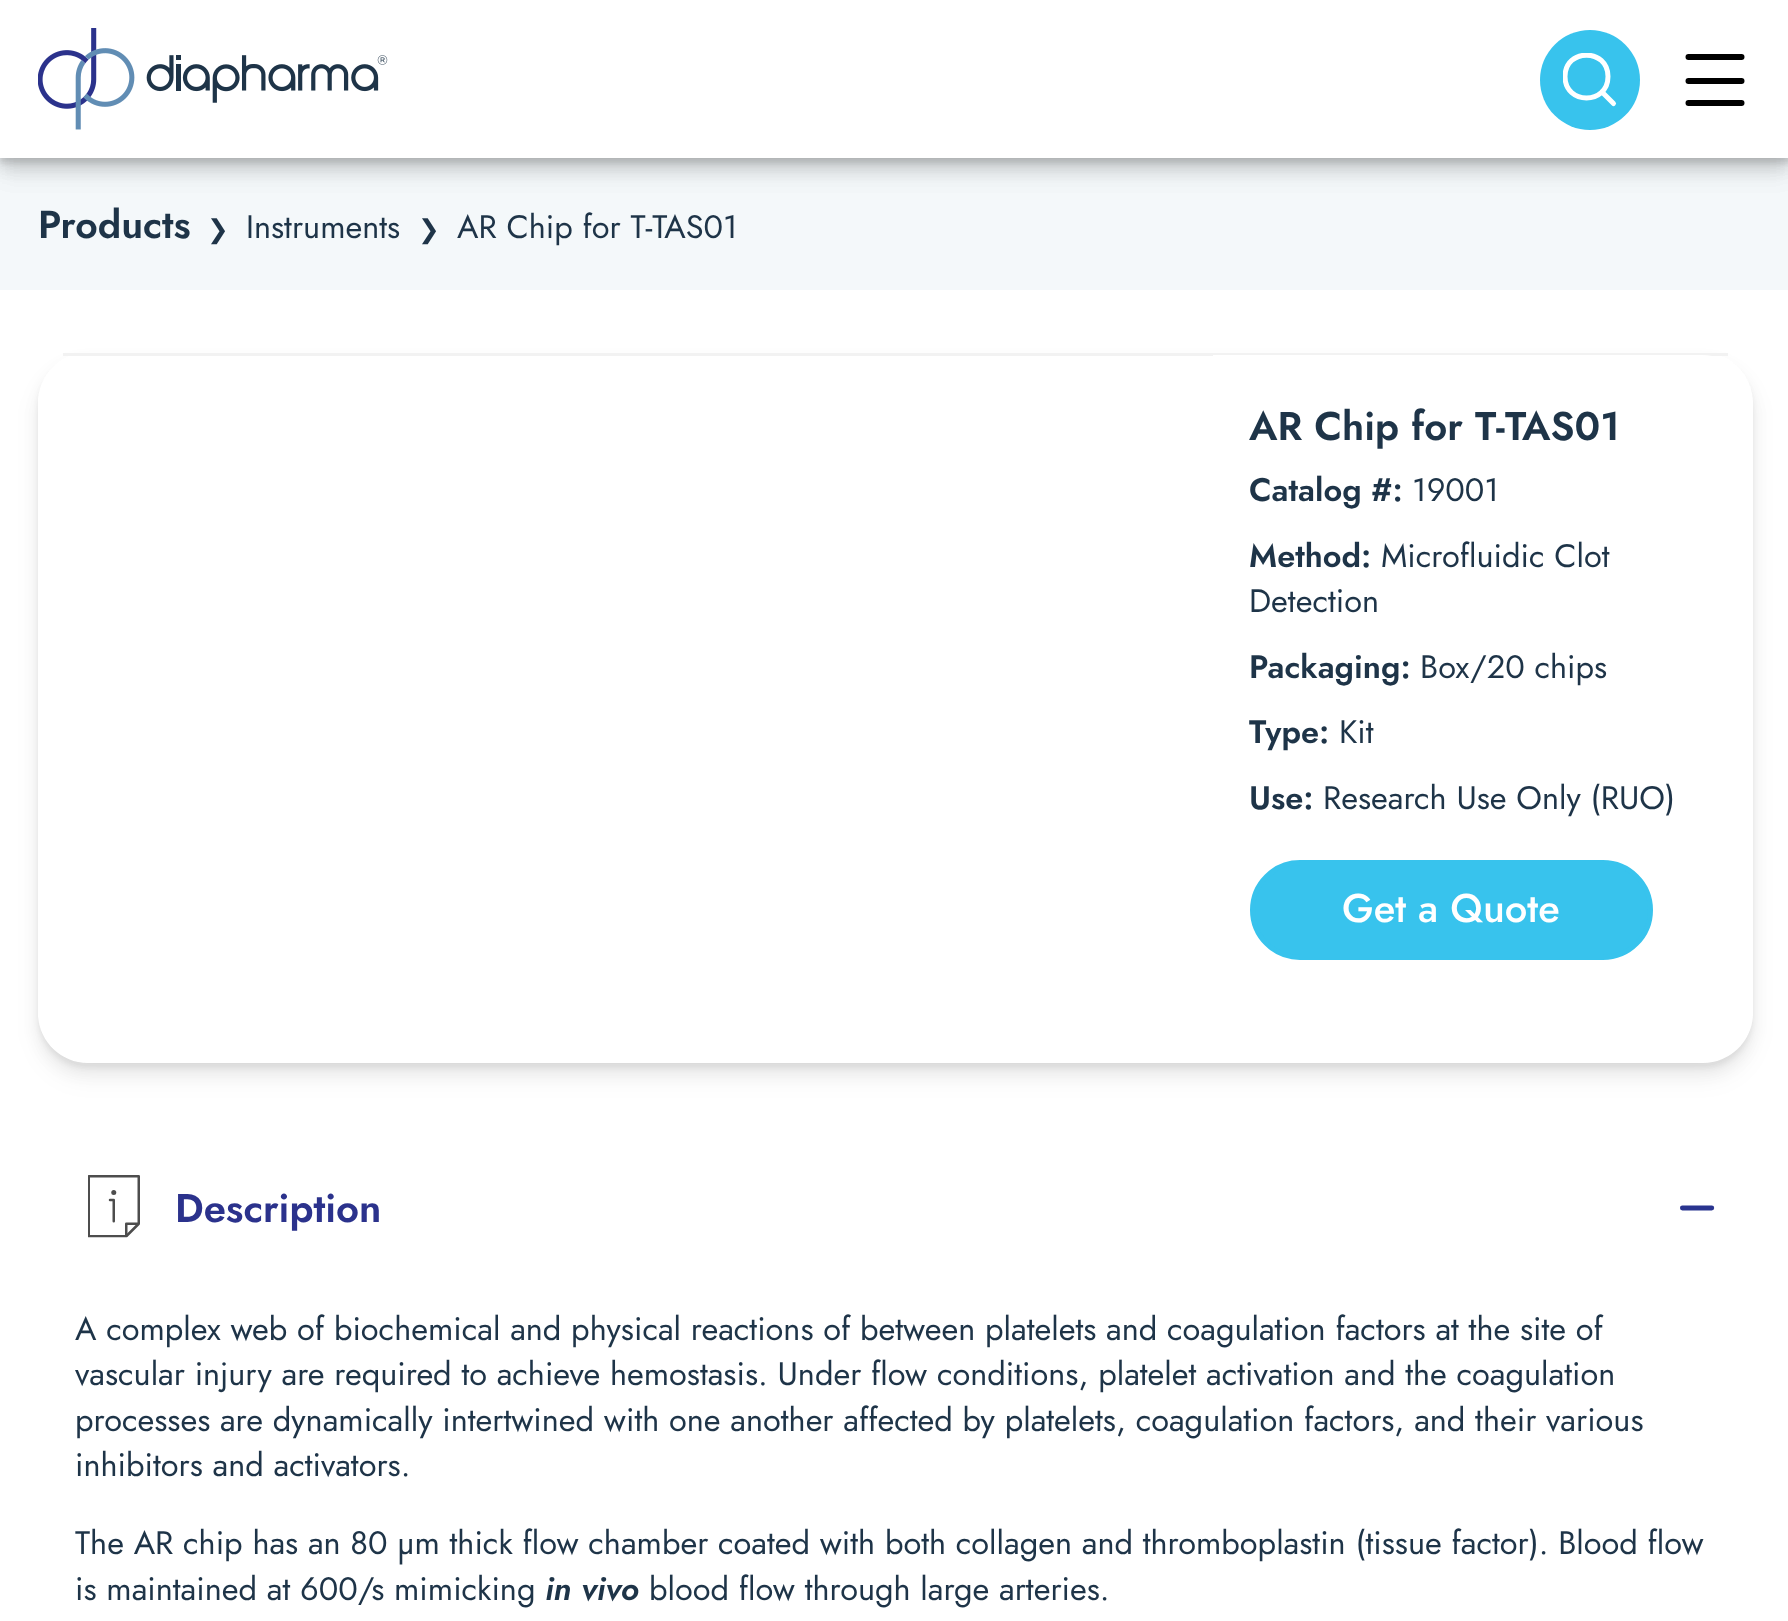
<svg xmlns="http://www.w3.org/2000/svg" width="1788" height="1621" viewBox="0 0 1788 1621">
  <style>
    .t1 { font: 600 39px Jost; fill: #1e3448; }
    .t2 { font: 26px DejaVu Sans; fill: #1e3448; }
    .t3 { font: 32.5px Jost; fill: #1e3448; }
    .t4 { font: 600 40px Jost; fill: #1e3448; }
    .t5 { font: 600 32.5px Jost; fill: #1e3448; }
    .t6 { font: 500 40px Jost; fill: #fff; }
    .t7 { font: 600 40px Jost; fill: #2b328c; }
    .t8 { font: italic 600 32.5px Jost; fill: #1e3448; }
  </style>
  <defs>
    <clipPath id="clip1"><rect x="1563" y="53" width="55" height="55"/></clipPath>
    <clipPath id="clip2"><path d="M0 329H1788V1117H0ZM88 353H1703C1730.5 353 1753 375.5 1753 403V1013C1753 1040.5 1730.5 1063 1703 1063H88C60.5 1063 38 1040.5 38 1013V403C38 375.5 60.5 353 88 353Z" clip-rule="evenodd"/></clipPath>
    <clipPath id="clip3"><path d="M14 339H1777V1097H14ZM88 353H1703C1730.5 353 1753 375.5 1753 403V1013C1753 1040.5 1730.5 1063 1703 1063H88C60.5 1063 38 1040.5 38 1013V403C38 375.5 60.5 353 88 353Z" clip-rule="evenodd"/></clipPath>
    <clipPath id="clip4"><path d="M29 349H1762V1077H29ZM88 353H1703C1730.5 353 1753 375.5 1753 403V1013C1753 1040.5 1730.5 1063 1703 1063H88C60.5 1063 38 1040.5 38 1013V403C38 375.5 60.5 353 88 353Z" clip-rule="evenodd"/></clipPath>
  </defs>
  <rect width="100%" height="100%" fill="#fff"/>
  <rect x="0" y="158" width="1788" height="132" fill="#f4f8fa"/>
  <rect x="0" y="15" width="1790" height="158" fill="#0000000d" filter="blur(12.5px)"/>
  <rect x="0" y="10" width="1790" height="158" fill="#0000000d" filter="blur(7.5px)"/>
  <rect x="0" y="5" width="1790" height="158" fill="#0000000d" filter="blur(2.5px)"/>
  <rect x="0" y="15" width="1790" height="158" fill="#0000000d" filter="blur(12.5px)"/>
  <rect x="0" y="10" width="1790" height="158" fill="#0000000d" filter="blur(7.5px)"/>
  <rect x="0" y="5" width="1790" height="158" fill="#0000000d" filter="blur(2.5px)"/>
  <rect x="0" y="0" width="1788" height="158" fill="#fff"/>
  <image x="38" y="28" width="350" height="102" href="images/1.png"/>
  <circle cx="1590" cy="80" r="50" fill="#38c3ed"/>
  <g clip-path="url(#clip1)">
    <path d="M1608 76.5C1608 105 1565 105 1565 76.5C1565 48 1608 48 1608 76.5Z" fill="none" stroke="#fff" stroke-width="5" stroke-linecap="round" stroke-linejoin="round"/>
  </g>
  <path d="M1613.5 103.5L1602 92" fill="none" stroke="#fff" stroke-width="5" stroke-linecap="round" stroke-linejoin="round"/>
  <path d="M1688.5 81H1741.5M1688.5 103H1741.5M1688.5 57H1741.5" fill="none" stroke="#000" stroke-width="6" stroke-linecap="round"/>
  <text x="38" y="238" class="t1">Products</text>
  <text x="207" y="238" class="t2">❯</text>
  <text x="246" y="238" class="t3">Instruments</text>
  <text x="418" y="238" class="t2">❯</text>
  <text x="457" y="238" class="t3">AR Chip for T-TAS01</text>
  <g clip-path="url(#clip2)">
    <rect x="38" y="368" width="1715" height="710" rx="50" fill="#0000000d" filter="blur(12.5px)"/>
  </g>
  <g clip-path="url(#clip3)">
    <rect x="38" y="363" width="1715" height="710" rx="50" fill="#0000000d" filter="blur(7.5px)"/>
  </g>
  <g clip-path="url(#clip4)">
    <rect x="38" y="358" width="1715" height="710" rx="50" fill="#0000000d" filter="blur(2.5px)"/>
  </g>
  <rect x="63" y="353" width="1665" height="3" fill="#f2f2f2"/>
  <path d="M1213 355V1010H1752V402C1752 376 1730 355 1702 355Z" fill="#fff"/>
  <text x="1249" y="440" class="t4">AR Chip for T-TAS01</text>
  <text x="1249" y="501" class="t5">Catalog #:</text>
  <text x="1412" y="501" class="t3">19001</text>
  <text x="1249" y="567" class="t5">Method:</text>
  <text x="1381" y="567" class="t3">Microfluidic Clot</text>
  <text x="1249" y="612" class="t3">Detection</text>
  <text x="1249" y="678" class="t5">Packaging:</text>
  <text x="1420" y="678" class="t3">Box/20 chips</text>
  <text x="1249" y="743" class="t5">Type:</text>
  <text x="1339" y="743" class="t3">Kit</text>
  <text x="1249" y="809" class="t5">Use:</text>
  <text x="1323" y="809" class="t3">Research Use Only (RUO)</text>
  <rect x="1252.5" y="862.5" width="398" height="95" rx="47.5" fill="#38c3ed" stroke="#38c3ed" stroke-width="5"/>
  <text x="1342" y="922" class="t6">Get a Quote</text>
  <image x="88" y="1175" width="52" height="63" href="images/2.png"/>
  <text x="175" y="1222" class="t7">Description</text>
  <image x="1680" y="1205" width="35" height="6" href="images/3.png"/>
  <text x="75" y="1340" class="t3">A complex web of biochemical and physical reactions of between platelets and coagulation factors at the site of</text>
  <text x="75" y="1385" class="t3">vascular injury are required to achieve hemostasis. Under flow conditions, platelet activation and the coagulation</text>
  <text x="75" y="1431" class="t3">processes are dynamically intertwined with one another affected by platelets, coagulation factors, and their various</text>
  <text x="75" y="1476" class="t3">inhibitors and activators.</text>
  <text x="75" y="1554" class="t3">The AR chip has an 80 µm thick flow chamber coated with both collagen and thromboplastin (tissue factor). Blood flow</text>
  <text x="75" y="1600" class="t3">is maintained at 600/s mimicking</text>
  <text x="545" y="1600" class="t8">in vivo</text>
  <text x="649" y="1600" class="t3">blood flow through large arteries.</text>
</svg>
